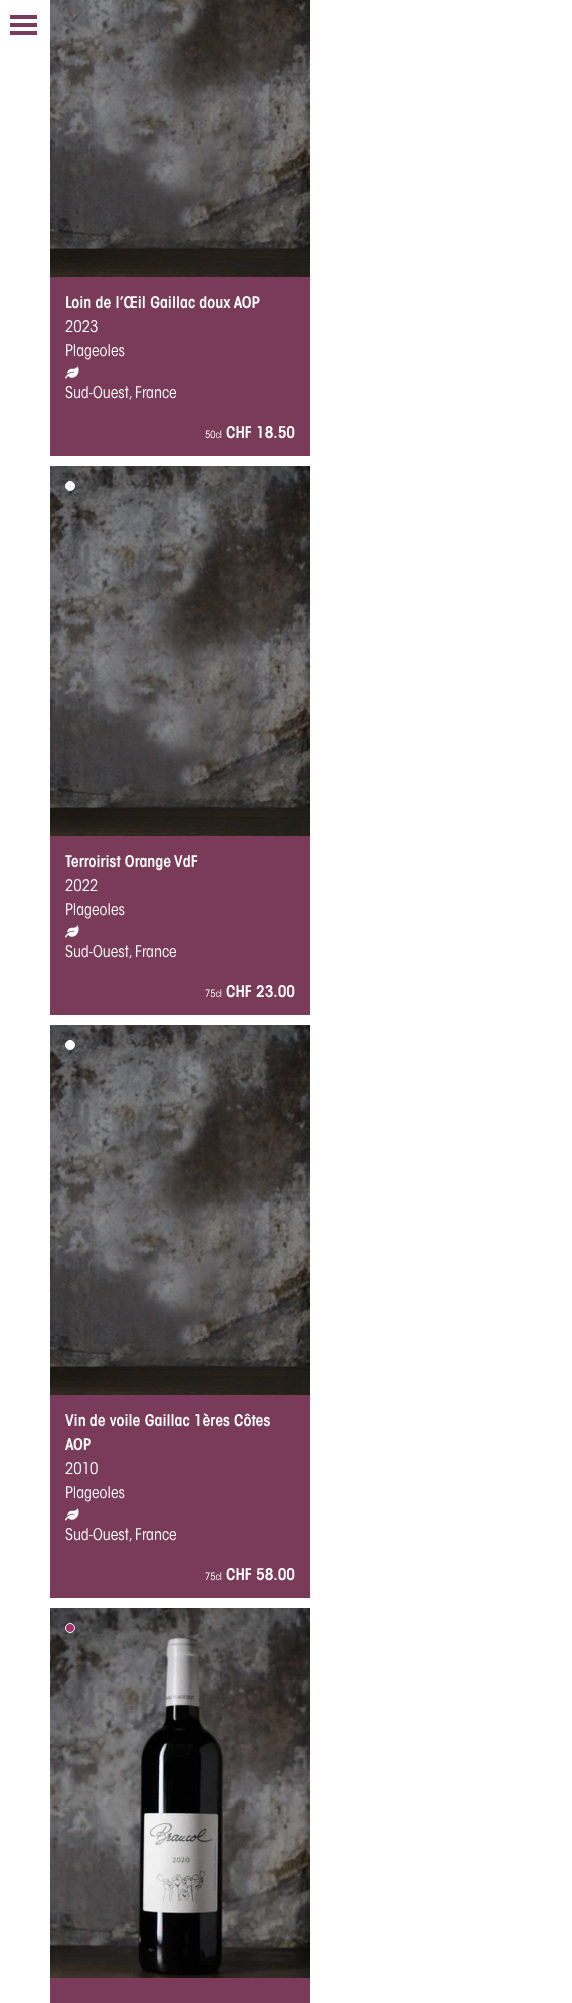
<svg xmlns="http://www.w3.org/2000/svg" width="572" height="2003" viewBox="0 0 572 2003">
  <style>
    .t1 { font: 600 16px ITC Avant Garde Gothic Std; fill: #fff; }
    .t2 { font: 300 16px ITC Avant Garde Gothic Std; fill: #fff; }
    .t3 { font: 300 10px ITC Avant Garde Gothic Std; fill: #fff; }
  </style>
  <rect width="100%" height="100%" fill="#fff"/>
  <rect x="10" y="15" width="27" height="4" fill="#793b59"/>
  <rect x="10" y="23" width="27" height="4" fill="#793b59"/>
  <rect x="10" y="31" width="27" height="4" fill="#793b59"/>
  <rect x="50" y="277" width="260" height="179" fill="#793b59"/>
  <image x="50" y="0" width="260" height="277" href="images/1.png"/>
  <text x="65" y="308" class="t1">Loin de l’Œil Gaillac doux AOP</text>
  <text x="65" y="332" class="t2">2023</text>
  <text x="65" y="356" class="t2">Plageoles</text>
  <image x="65" y="366" width="14" height="13" href="images/2.png"/>
  <text x="65" y="398" class="t2">Sud-Ouest, France</text>
  <text x="205" y="438" class="t3">50cl</text>
  <text x="226" y="438" class="t1">CHF 18.50</text>
  <rect x="50" y="836" width="260" height="179" fill="#793b59"/>
  <image x="50" y="466" width="260" height="370" href="images/3.png"/>
  <circle cx="70" cy="486" r="4.5" fill="#fff" stroke="#fff"/>
  <text x="65" y="867" class="t1">Terroirist Orange VdF</text>
  <text x="65" y="891" class="t2">2022</text>
  <text x="65" y="915" class="t2">Plageoles</text>
  <image x="65" y="925" width="14" height="13" href="images/2.png"/>
  <text x="65" y="957" class="t2">Sud-Ouest, France</text>
  <text x="205" y="997" class="t3">75cl</text>
  <text x="226" y="997" class="t1">CHF 23.00</text>
  <rect x="50" y="1395" width="260" height="203" fill="#793b59"/>
  <image x="50" y="1025" width="260" height="370" href="images/3.png"/>
  <circle cx="70" cy="1045" r="4.5" fill="#fff" stroke="#fff"/>
  <text x="65" y="1426" class="t1">Vin de voile Gaillac 1ères Côtes</text>
  <text x="65" y="1450" class="t1">AOP</text>
  <text x="65" y="1474" class="t2">2010</text>
  <text x="65" y="1498" class="t2">Plageoles</text>
  <image x="65" y="1508" width="14" height="13" href="images/2.png"/>
  <text x="65" y="1540" class="t2">Sud-Ouest, France</text>
  <text x="205" y="1580" class="t3">75cl</text>
  <text x="226" y="1580" class="t1">CHF 58.00</text>
  <rect x="50" y="1978" width="260" height="25" fill="#793b59"/>
  <image x="50" y="1608" width="260" height="370" href="images/4.png"/>
  <circle cx="70" cy="1628" r="4.5" fill="#a53267" stroke="#fff"/>
</svg>
